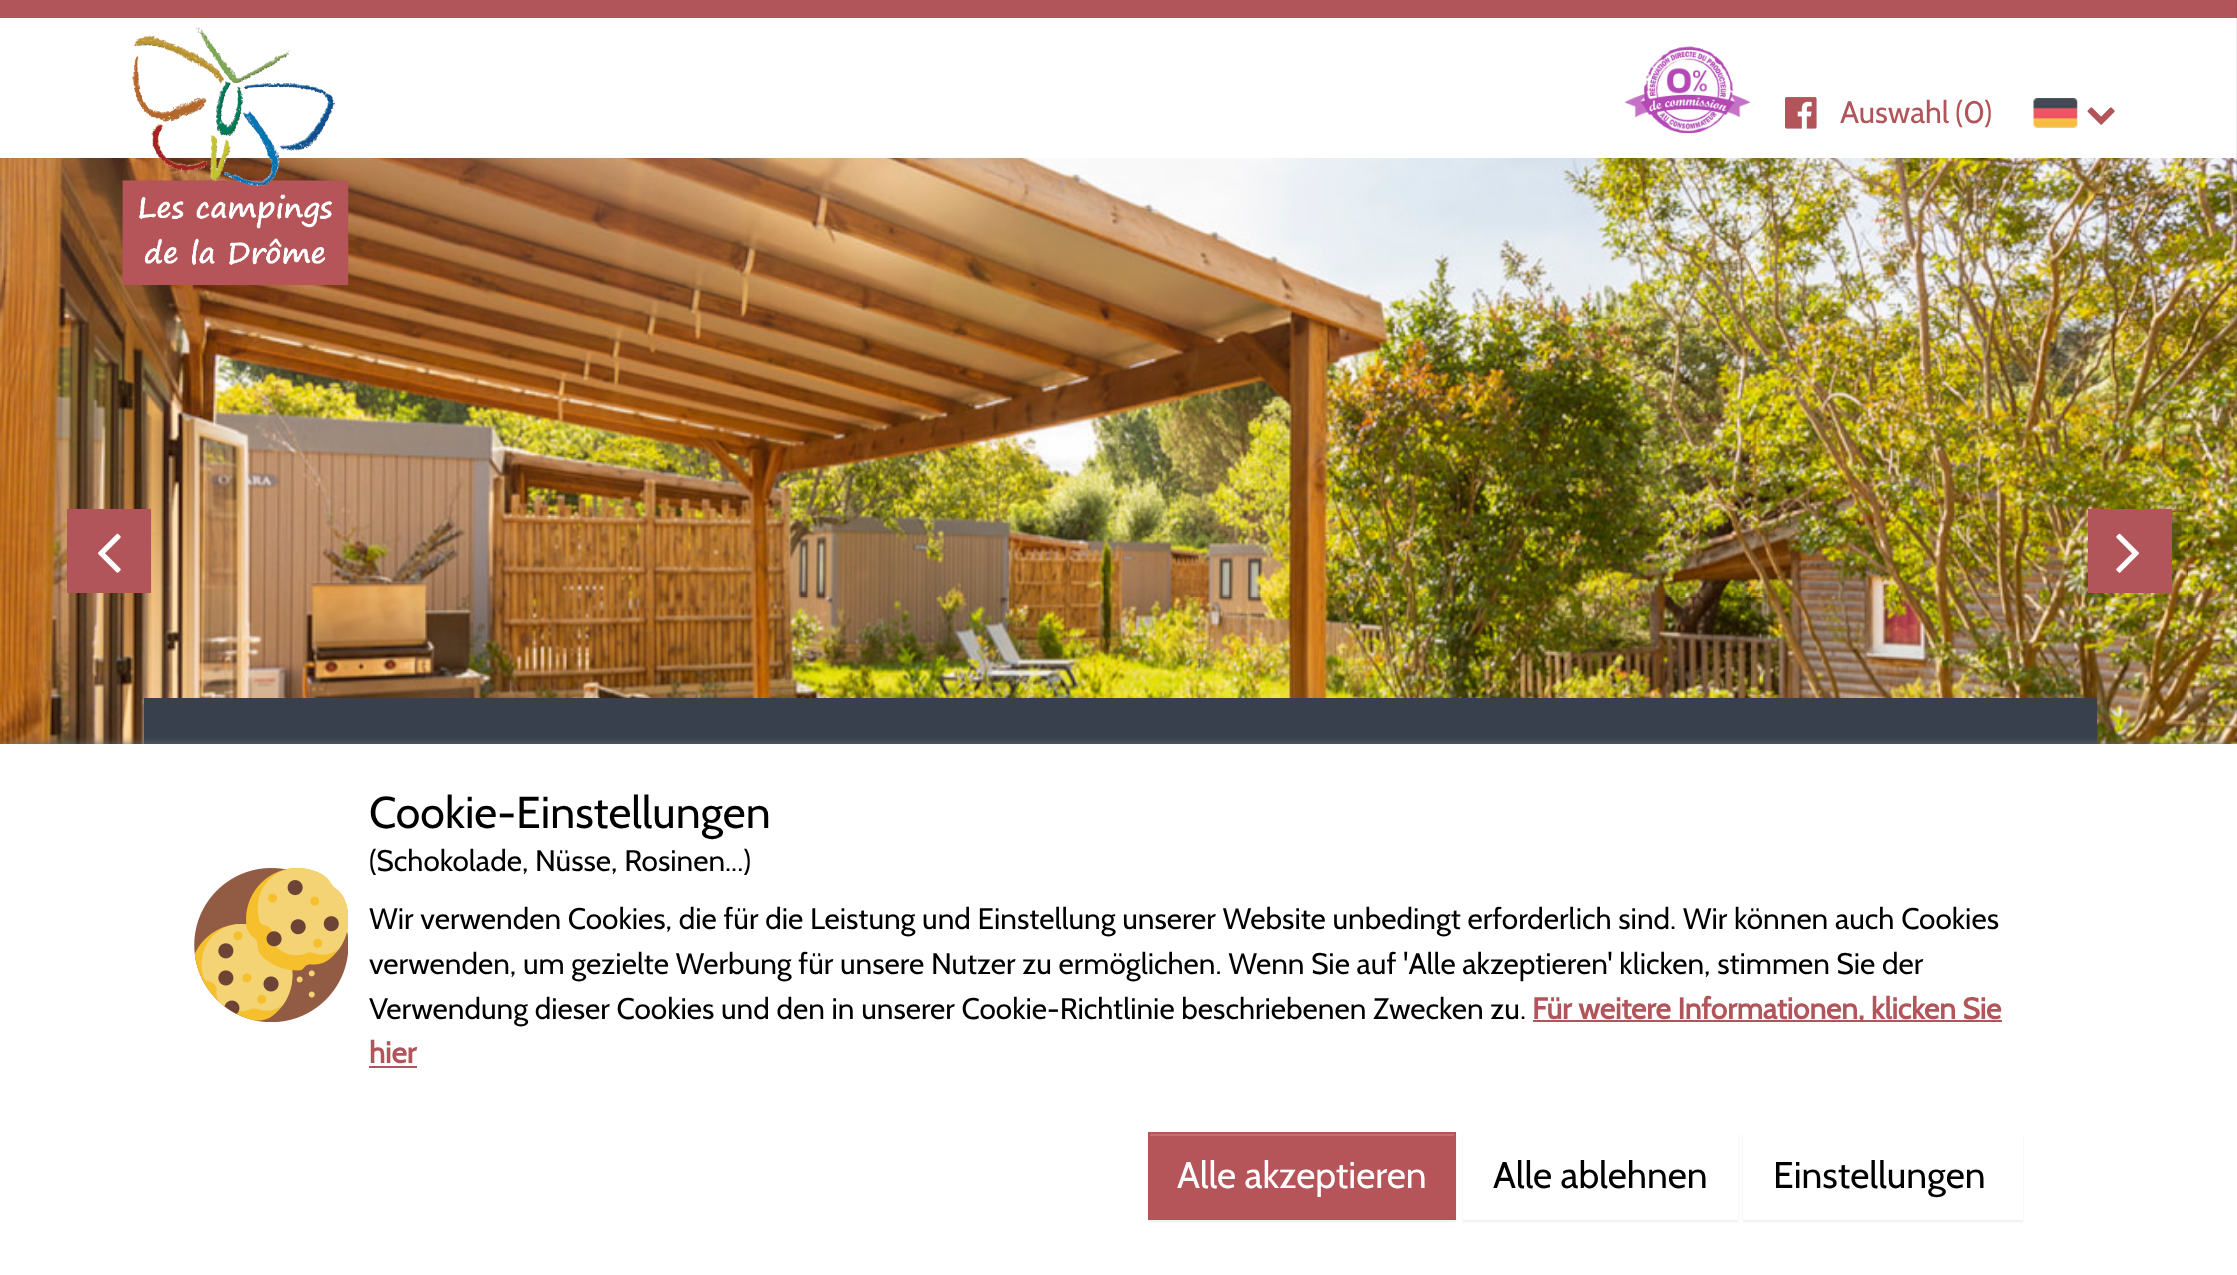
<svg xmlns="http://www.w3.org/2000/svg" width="2237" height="1275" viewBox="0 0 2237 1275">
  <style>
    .t1 { font: 31px Cabin; fill: #b2555a; }
    .t2 { font: 44.6px Cabin; fill: #000; }
    .t3 { font: 29.75px Cabin; fill: #000; }
    .t4 { font: bold 29.75px Cabin; fill: #b2555a; }
    .t5 { font: 37.25px Cabin; fill: #fff; }
    .t6 { font: 37.25px Cabin; fill: #000; }
  </style>
  <defs>
    <clipPath id="clip1"><path d="M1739 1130H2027V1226H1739ZM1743 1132H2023V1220H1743Z" clip-rule="evenodd"/></clipPath>
  </defs>
  <rect width="100%" height="100%" fill="#fff"/>
  <rect x="0" y="0" width="2237" height="18" fill="#b2555a"/>
  <image x="0" y="158" width="2237" height="586" href="images/6.png"/>
  <image x="122" y="27" width="227" height="259" href="images/1.png"/>
  <image x="1624" y="46" width="127" height="88" href="images/2.png"/>
  <image x="1785" y="97" width="32" height="32" href="images/3.png"/>
  <text x="1840" y="123" word-spacing="-1" class="t1">Auswahl (</text>
  <text x="1963" y="123" class="t1">0</text>
  <text x="1984" y="123" class="t1">)</text>
  <image x="2033" y="98" width="45" height="30" href="images/4.png"/>
  <image x="2087" y="107" width="28" height="18" href="images/5.png"/>
  <rect x="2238" y="0" width="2" height="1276" fill="#1c1c1c" filter="blur(1px)"/>
  <rect x="67" y="509" width="84" height="84" fill="#b2555a"/>
  <image x="98" y="533" width="23" height="40" href="images/7.png"/>
  <rect x="2088" y="509" width="84" height="84" fill="#b2555a"/>
  <image x="2116" y="533" width="23" height="40" href="images/8.png"/>
  <rect x="144" y="698" width="1953" height="46" fill="#38404d"/>
  <rect x="9" y="744" width="2221" height="514" fill="#696969" filter="blur(4.5px)"/>
  <rect x="0" y="744" width="2237" height="531" fill="#fff"/>
  <image x="194" y="868" width="154" height="154" href="images/9.png"/>
  <text x="369" y="828" class="t2">Cookie-Einstellungen</text>
  <text x="369" y="871" class="t3">(Schokolade, Nüsse, Rosinen...)</text>
  <text x="369" y="929" class="t3">Wir verwenden Cookies, die für die Leistung und Einstellung unserer Website unbedingt erforderlich sind. Wir können auch Cookies</text>
  <text x="369" y="974" class="t3">verwenden, um gezielte Werbung für unsere Nutzer zu ermöglichen. Wenn Sie auf 'Alle akzeptieren' klicken, stimmen Sie der</text>
  <text x="369" y="1019" class="t3">Verwendung dieser Cookies und den in unserer Cookie-Richtlinie beschriebenen Zwecken zu.</text>
  <rect x="1533" y="1020" width="469" height="2" fill="#b2555a"/>
  <text x="1532" y="1019" class="t4">Für weitere Informationen, klicken Sie</text>
  <text x="369" y="1063" class="t4">hier</text>
  <rect x="369" y="1066" width="48" height="2" fill="#b2555a"/>
  <rect x="1148" y="1134" width="308" height="88" fill="#00000012" filter="blur(1px)"/>
  <rect x="1148" y="1132" width="308" height="88" fill="#b5555a"/>
  <rect x="1150" y="1134" width="304" height="2" fill="#c06f73"/>
  <text x="1177" y="1188" class="t5">Alle akzeptieren</text>
  <rect x="1463" y="1134" width="275" height="88" fill="#00000012" filter="blur(1px)"/>
  <rect x="1463" y="1133" width="275" height="87" fill="#fff"/>
  <text x="1493" y="1188" class="t6">Alle ablehnen</text>
  <g clip-path="url(#clip1)">
    <rect x="1743" y="1134" width="280" height="88" fill="#00000012" filter="blur(1px)"/>
  </g>
  <rect x="1744" y="1133" width="278" height="86" fill="none" stroke="#fff" stroke-width="2"/>
  <text x="1773" y="1188" class="t6">Einstellungen</text>
</svg>
